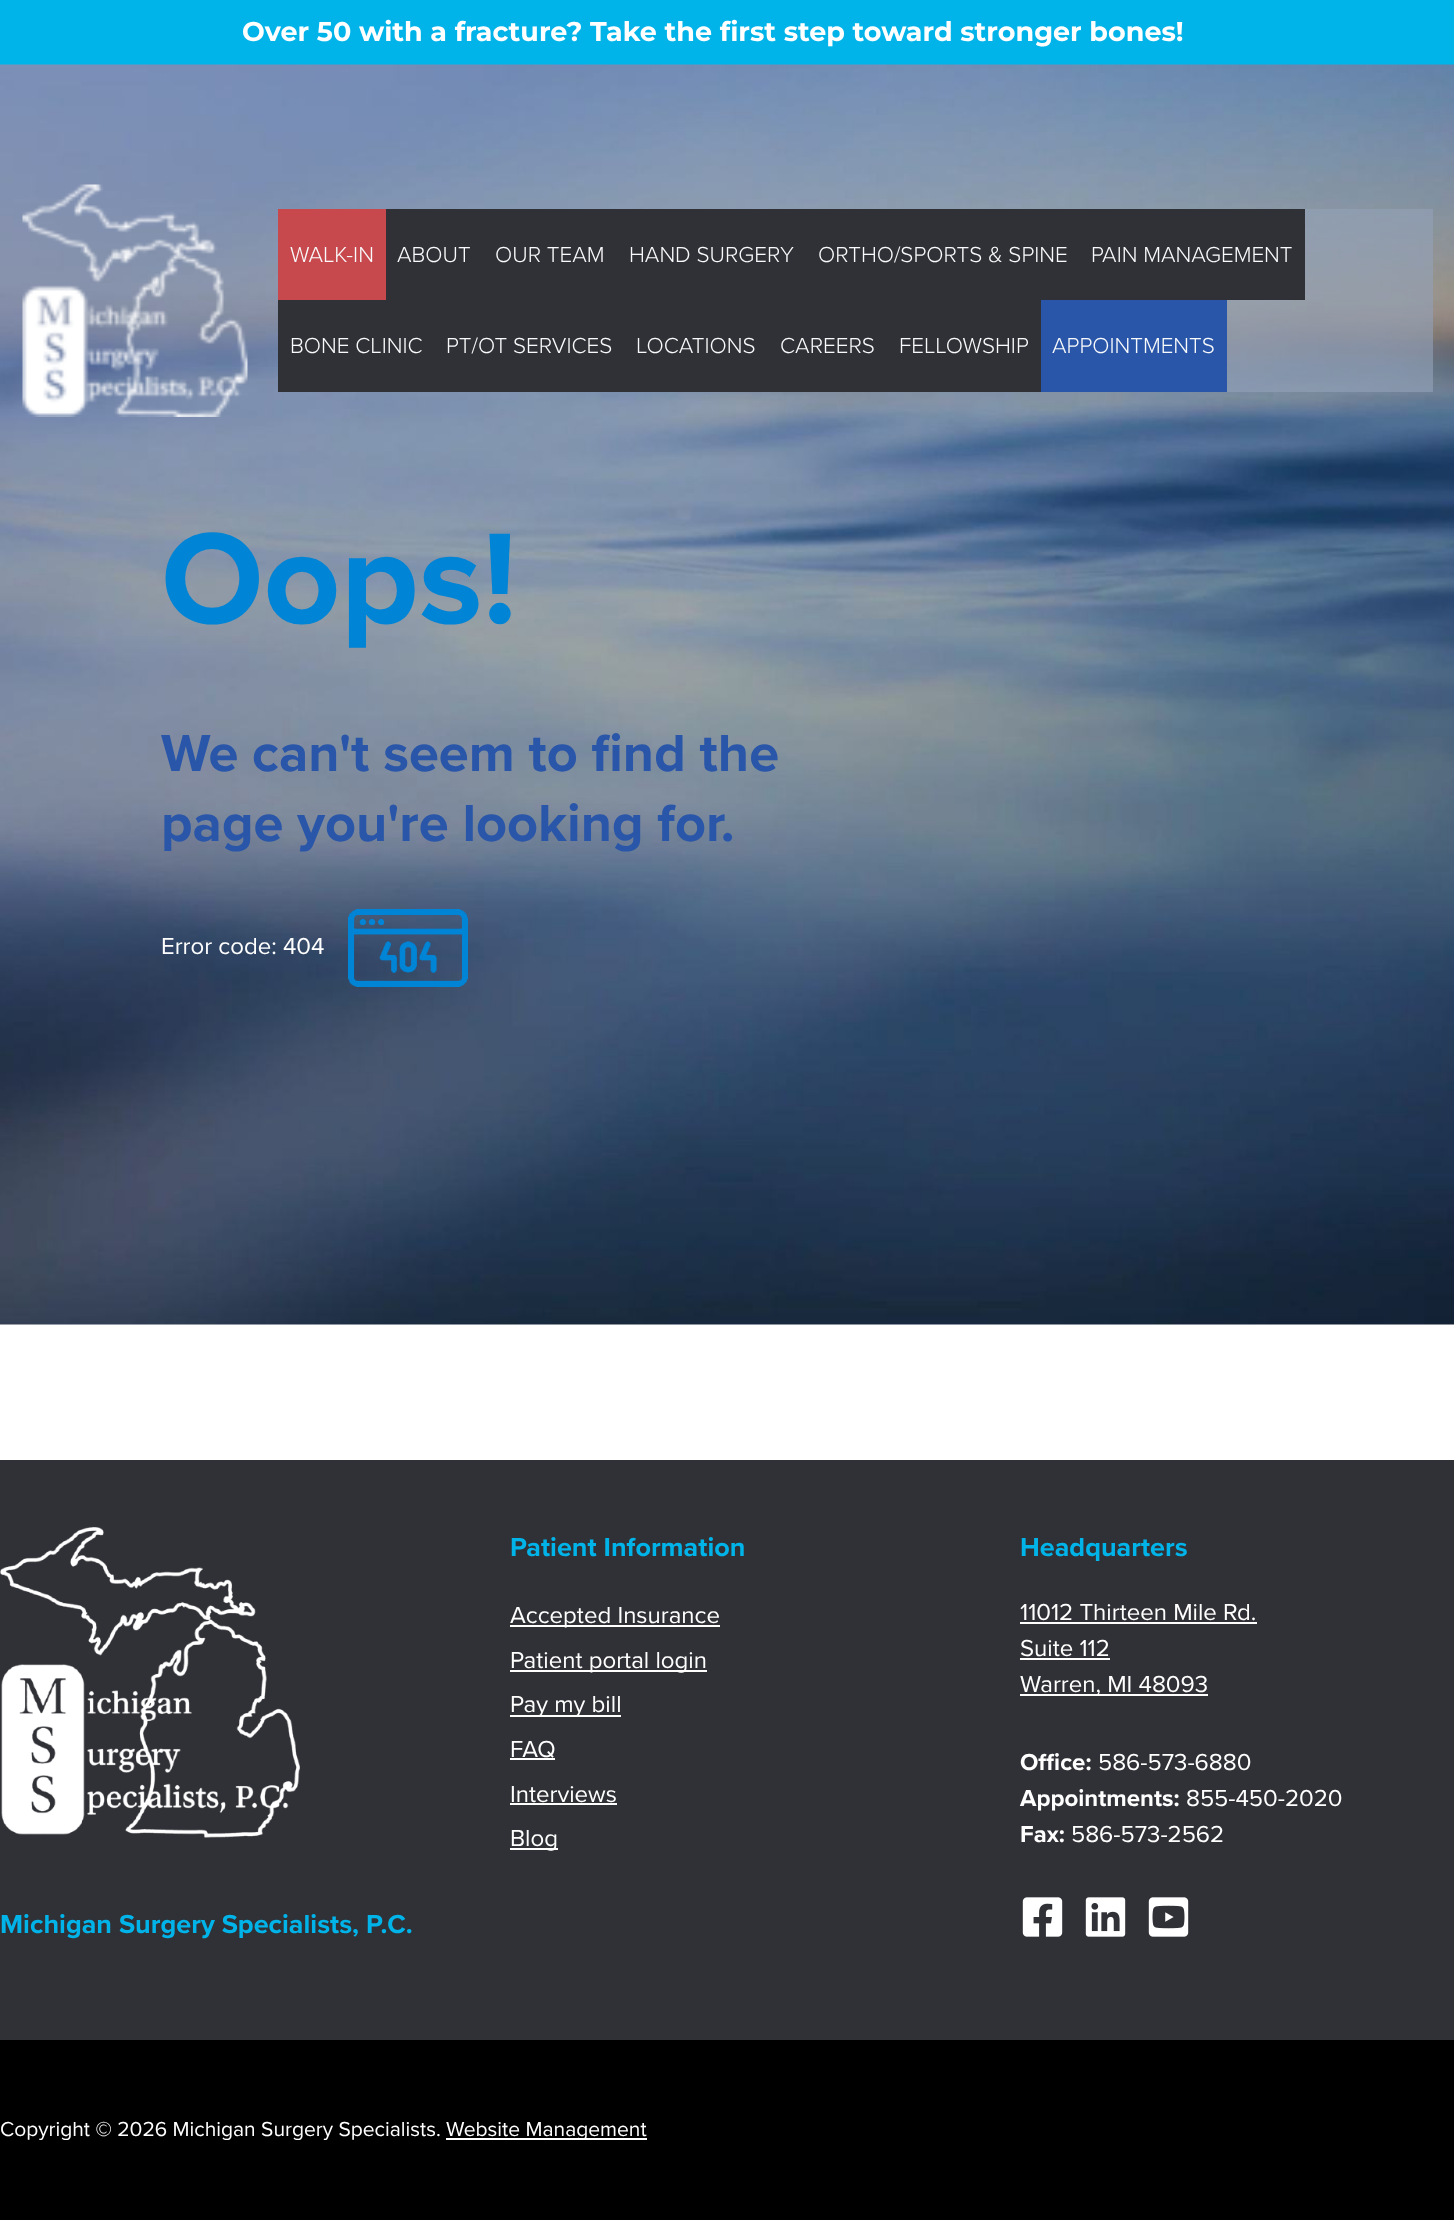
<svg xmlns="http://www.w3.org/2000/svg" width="1454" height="2224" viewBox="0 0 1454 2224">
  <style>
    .t1 { font: 100 27px Montserrat; fill: #fff; }
    .t2 { font: 300 22.5px Proxima Nova; fill: #f9fafb; }
    .t3 { font: bold 134px Proxima Nova; fill: #0084d5; }
    .t4 { font: bold 54px Proxima Nova; fill: #2956a9; }
    .t5 { font: 24px Proxima Nova; fill: #fff; }
    .t6 { font: bold 27px Proxima Nova; fill: #00b4ea; }
    .t7 { font: bold 24px Proxima Nova; fill: #fff; }
    .t8 { font: 21px Proxima Nova; fill: #fff; }
  </style>
  <rect width="100%" height="100%" fill="#fff"/>
  <rect x="0" y="0" width="1454" height="65" fill="#00b4ea"/>
  <text x="242" y="41" class="t1">Over 50 with a fracture? Take the first step toward stronger bones!</text>
  <image x="0" y="64" width="1454" height="1261" href="images/2.png"/>
  <image x="22" y="184" width="226" height="233" href="images/1.png"/>
  <rect x="278" y="209" width="1155" height="183" fill="#93a2b89e"/>
  <rect x="278" y="209" width="108" height="91" fill="#d33939d6"/>
  <text x="290" y="262" class="t2">WALK-IN</text>
  <rect x="386" y="209" width="919" height="91" fill="#303136"/>
  <text x="397" y="262" class="t2">ABOUT</text>
  <text x="495" y="262" class="t2">OUR TEAM</text>
  <text x="629" y="262" class="t2">HAND SURGERY</text>
  <text x="818" y="262" class="t2">ORTHO/SPORTS &amp; SPINE</text>
  <text x="1091" y="262" class="t2">PAIN MANAGEMENT</text>
  <rect x="278" y="300" width="763" height="92" fill="#303136"/>
  <text x="290" y="353" class="t2">BONE CLINIC</text>
  <text x="446" y="353" class="t2">PT/OT SERVICES</text>
  <text x="636" y="353" class="t2">LOCATIONS</text>
  <text x="780" y="353" class="t2">CAREERS</text>
  <text x="899" y="353" class="t2">FELLOWSHIP</text>
  <rect x="1041" y="300" width="186" height="92" fill="#2956a9"/>
  <text x="1052" y="353" class="t2">APPOINTMENTS</text>
  <text x="161" y="623" class="t3">Oops!</text>
  <text x="161" y="771" class="t4">We can't seem to find the</text>
  <text x="161" y="841" class="t4">page you're looking for.</text>
  <text x="161" y="954" class="t5">Error code: 404</text>
  <image x="348" y="909" width="120" height="78" href="images/3.png"/>
  <rect x="0" y="1460" width="1454" height="580" fill="#303136"/>
  <text x="510" y="1556" class="t6">Patient Information</text>
  <rect x="510" y="1625" width="210" height="2" fill="#fff"/>
  <text x="510" y="1623" class="t5">Accepted Insurance</text>
  <rect x="510" y="1670" width="197" height="2" fill="#fff"/>
  <text x="510" y="1668" class="t5">Patient portal login</text>
  <rect x="510" y="1715" width="111" height="2" fill="#fff"/>
  <text x="510" y="1712" class="t5">Pay my bill</text>
  <text x="510" y="1757" class="t5">FAQ</text>
  <rect x="510" y="1758" width="45" height="2" fill="#fff"/>
  <text x="510" y="1802" class="t5">Interviews</text>
  <rect x="510" y="1803" width="107" height="2" fill="#fff"/>
  <rect x="510" y="1848" width="48" height="2" fill="#fff"/>
  <text x="510" y="1846" class="t5">Blog</text>
  <text x="1020" y="1556" class="t6">Headquarters</text>
  <text x="1020" y="1620" class="t5">11012 Thirteen Mile Rd.</text>
  <rect x="1020" y="1622" width="237" height="2" fill="#fff"/>
  <text x="1020" y="1656" class="t5">Suite 112</text>
  <rect x="1020" y="1658" width="90" height="2" fill="#fff"/>
  <rect x="1020" y="1694" width="188" height="2" fill="#fff"/>
  <text x="1020" y="1692" class="t5">Warren, MI 48093</text>
  <text x="1020" y="1770" class="t7">Office:</text>
  <text x="1098" y="1770" class="t5">586-573-6880</text>
  <text x="1020" y="1806" class="t7">Appointments:</text>
  <text x="1186" y="1806" class="t5">855-450-2020</text>
  <text x="1020" y="1842" class="t7">Fax:</text>
  <text x="1071" y="1842" class="t5">586-573-2562</text>
  <image x="1022" y="1897" width="41" height="40" href="images/4.png"/>
  <image x="1085" y="1897" width="41" height="40" href="images/5.png"/>
  <image x="1148" y="1897" width="41" height="40" href="images/6.png"/>
  <image x="0" y="1527" width="300" height="311" href="images/7.png"/>
  <text x="0" y="1933" class="t6">Michigan Surgery Specialists, P.C.</text>
  <rect x="0" y="2040" width="1454" height="180" fill="#000"/>
  <text x="0" y="2136" class="t8">Copyright © 2026 Michigan Surgery Specialists.</text>
  <rect x="446" y="2138" width="201" height="2" fill="#fff"/>
  <text x="446" y="2136" class="t8">Website Management</text>
</svg>
